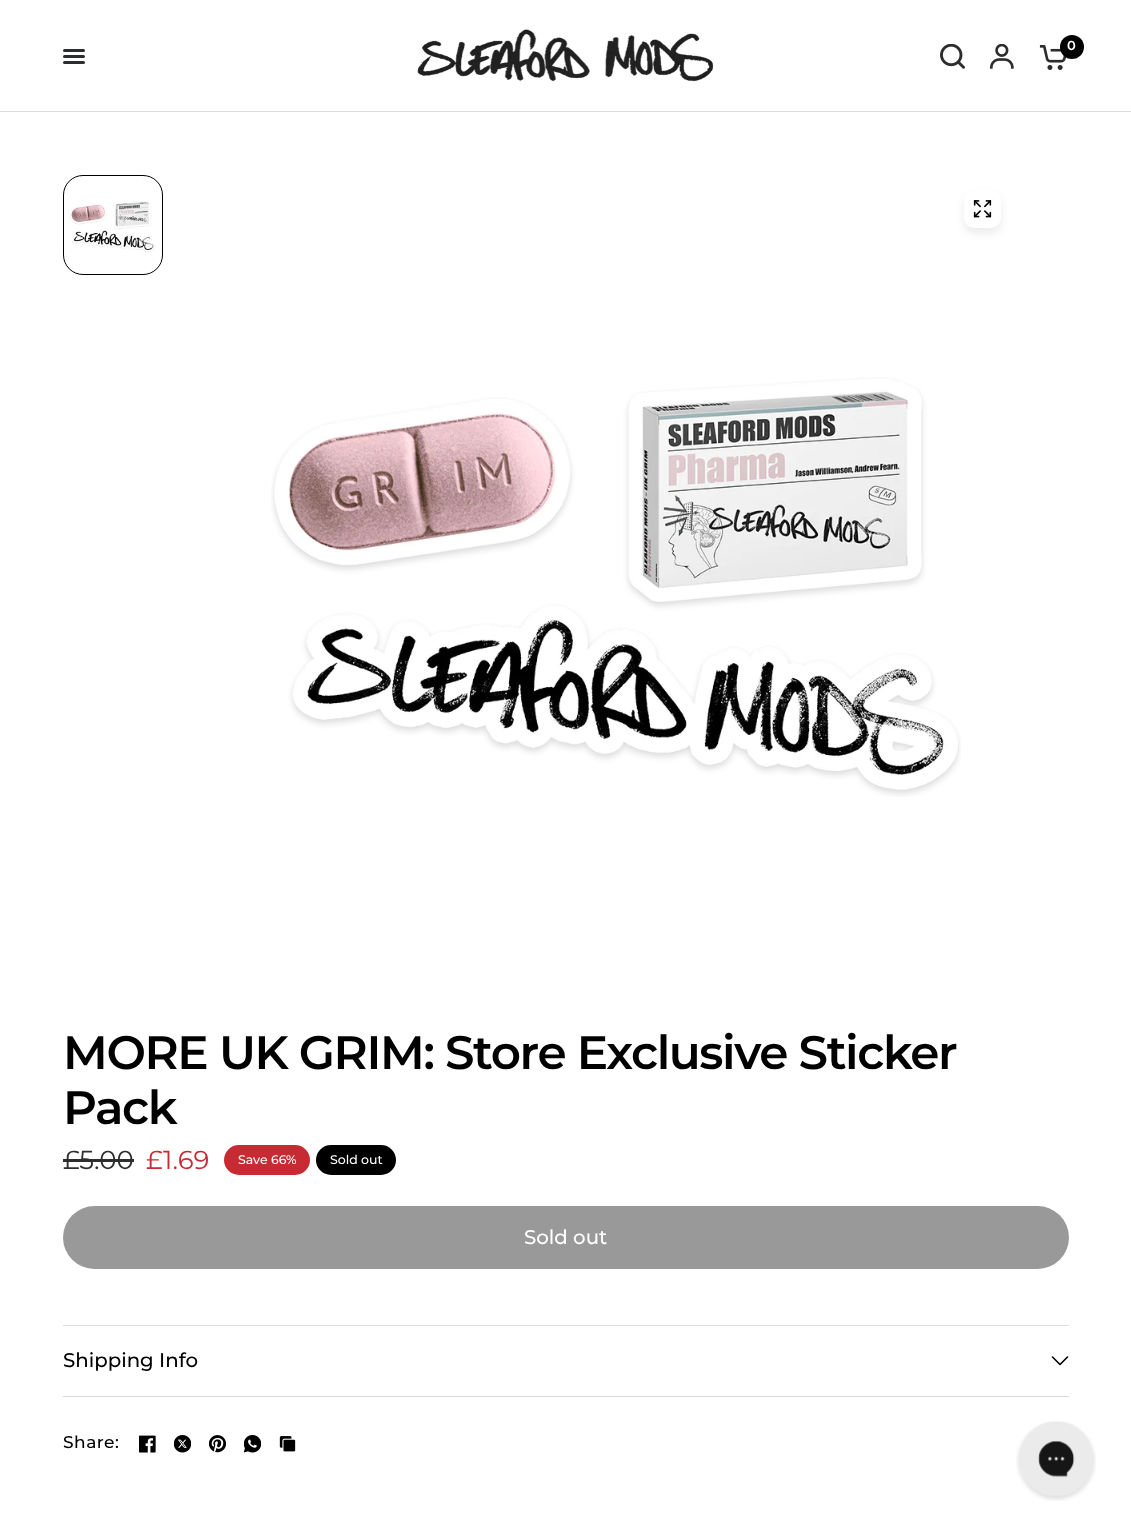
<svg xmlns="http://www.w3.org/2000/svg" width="1131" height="1529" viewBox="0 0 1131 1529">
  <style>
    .t1 { font: 600 13px Montserrat; fill: #fff; }
    .t2 { font: 600 46.9px Montserrat; letter-spacing: -1.4px; fill: #000; }
    .t3 { font: 26px Montserrat; fill: #2c2d2e; }
    .t4 { font: 26px Montserrat; fill: #c62a32; }
    .t5 { font: 500 12.5px Montserrat; fill: #fff; }
    .t6 { font: 500 19.75px Montserrat; fill: #fff; }
    .t7 { font: 500 19.75px Montserrat; fill: #000; }
    .t8 { font: 500 17px Montserrat; letter-spacing: 0.5px; fill: #000; }
  </style>
  <rect width="100%" height="100%" fill="#fff"/>
  <image x="417" y="29" width="297" height="53" href="images/1.png"/>
  <image x="940" y="44" width="25" height="25" href="images/2.png"/>
  <image x="990" y="44" width="24" height="25" href="images/3.png"/>
  <image x="1039" y="45" width="28" height="25" href="images/4.png"/>
  <circle cx="1072" cy="47" r="12" fill="#000"/>
  <text x="1067" y="50" class="t1">0</text>
  <rect x="63" y="49" width="22" height="3" rx="1.5" fill="#2c2d2e"/>
  <rect x="63" y="55" width="22" height="3" rx="1.5" fill="#2c2d2e"/>
  <rect x="63" y="61" width="22" height="3" rx="1.5" fill="#2c2d2e"/>
  <rect x="0" y="111" width="1131" height="1" fill="#dadce0"/>
  <image x="69" y="201" width="87" height="52" href="images/5.png"/>
  <rect x="63.5" y="175.5" width="99" height="99" rx="19.5" fill="none" stroke="#000"/>
  <rect x="964" y="195" width="37" height="38" rx="10" fill="#00000014" filter="blur(4px)"/>
  <rect x="964" y="190" width="37" height="38" rx="10" fill="#fff"/>
  <image x="973" y="200" width="19" height="18" href="images/6.png"/>
  <image x="271" y="377" width="690" height="420" href="images/7.png"/>
  <text x="63" y="1069" class="t2">MORE UK GRIM: Store Exclusive Sticker</text>
  <text x="63" y="1124" class="t2">Pack</text>
  <text x="63" y="1169" class="t3">£5.00</text>
  <rect x="63" y="1159" width="71" height="3" fill="#2c2d2e"/>
  <text x="146" y="1169" class="t4">£1.69</text>
  <rect x="224" y="1145" width="86" height="30" rx="15" fill="#c62a32"/>
  <text x="238" y="1164" class="t5">Save 66%</text>
  <rect x="316" y="1145" width="80" height="30" rx="15" fill="#000"/>
  <text x="330" y="1164" class="t5">Sold out</text>
  <rect x="63" y="1206" width="1006" height="63" rx="31.5" fill="#999"/>
  <text x="524" y="1244" class="t6">Sold out</text>
  <rect x="63" y="1325" width="1006" height="1" fill="#dadce0"/>
  <rect x="63" y="1396" width="1006" height="1" fill="#dadce0"/>
  <text x="63" y="1367" class="t7">Shipping Info</text>
  <path d="M1067.5 1357L1060 1364.5L1052.5 1357" fill="none" stroke="#000" stroke-width="1.6" stroke-linecap="round" stroke-linejoin="round"/>
  <text x="63" y="1448" class="t8">Share:</text>
  <image x="139" y="1435" width="17" height="18" href="images/8.png"/>
  <image x="174" y="1435" width="17" height="18" href="images/9.png"/>
  <image x="209" y="1435" width="17" height="18" href="images/10.png"/>
  <image x="244" y="1435" width="17" height="18" href="images/11.png"/>
  <image x="279" y="1436" width="17" height="16" href="images/12.png"/>
  <image x="1016" y="1421" width="80" height="80" href="images/13.png"/>
</svg>
